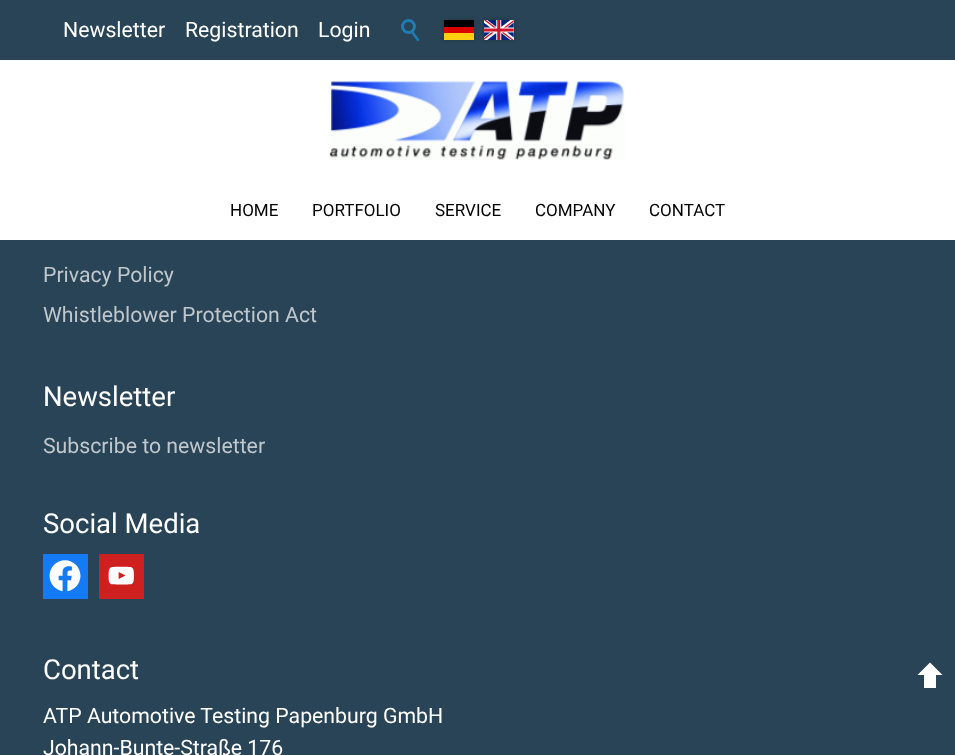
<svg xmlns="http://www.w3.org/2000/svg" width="955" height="755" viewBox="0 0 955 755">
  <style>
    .t1 { font: 21.25px Roboto; fill: #fff; }
    .t2 { font: 17px Roboto; fill: #000; }
    .t3 { font: 21.25px Roboto; fill: #bfc7cc; }
    .t4 { font: 27.5px Roboto; fill: #fff; }
  </style>
  <rect width="100%" height="100%" fill="#284456"/>
  <text x="63" y="37" class="t1">Newsletter</text>
  <text x="185" y="37" class="t1">Registration</text>
  <text x="318" y="37" class="t1">Login</text>
  <circle cx="408.5" cy="26.5" r="6" fill="none" stroke="#207cb5" stroke-width="3"/>
  <path d="M413 31L419.5 40L417.5 41.5L411 32.5Z" fill="#207cb5"/>
  <rect x="444" y="20" width="30" height="20" fill="#00000033" filter="blur(2px)"/>
  <rect x="444" y="20" width="30" height="7" fill="#000"/>
  <rect x="444" y="27" width="30" height="6" fill="#d00"/>
  <rect x="444" y="33" width="30" height="7" fill="#ffce0f"/>
  <rect x="484" y="20" width="30" height="20" fill="#00000033" filter="blur(2px)"/>
  <rect x="484" y="20" width="30" height="20" fill="#fff"/>
  <image x="484" y="20" width="30" height="20" href="images/1.png"/>
  <rect x="0" y="60" width="955" height="180" fill="#fff"/>
  <image x="329" y="80" width="296" height="80" href="images/2.png"/>
  <text x="230" y="216" class="t2">HOME</text>
  <text x="312" y="216" class="t2">PORTFOLIO</text>
  <text x="435" y="216" class="t2">SERVICE</text>
  <text x="535" y="216" class="t2">COMPANY</text>
  <text x="649" y="216" class="t2">CONTACT</text>
  <text x="43" y="282" class="t3">Privacy Policy</text>
  <text x="43" y="322" class="t3">Whistleblower Protection Act</text>
  <text x="43" y="406" class="t4">Newsletter</text>
  <text x="43" y="453" class="t3">Subscribe to newsletter</text>
  <text x="43" y="533" class="t4">Social Media</text>
  <rect x="43" y="554" width="45" height="45" fill="#147af6"/>
  <image x="49" y="560" width="32" height="32" href="images/3.png"/>
  <rect x="99" y="554" width="45" height="45" fill="#cd201f"/>
  <image x="108" y="566" width="26" height="19" href="images/4.png"/>
  <text x="43" y="679" class="t4">Contact</text>
  <text x="43" y="723" class="t1">ATP Automotive Testing Papenburg GmbH</text>
  <text x="43" y="755" class="t1">Johann-Bunte-Straße 176</text>
  <path d="M942.5 675H917.5L930 662.5Z" fill="#fff"/>
  <rect x="924" y="675" width="12" height="13" fill="#fff"/>
</svg>
